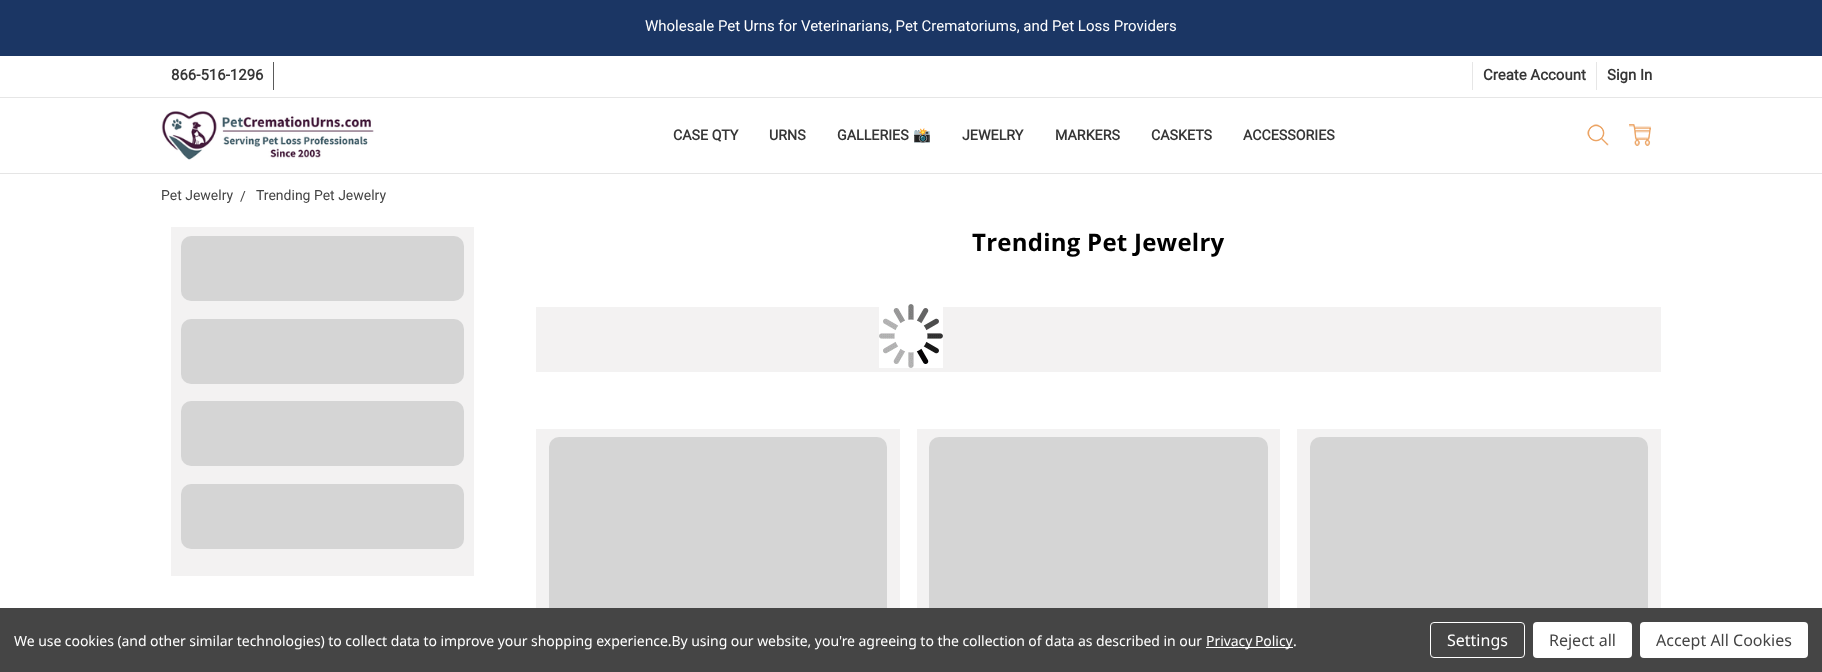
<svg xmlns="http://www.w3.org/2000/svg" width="1822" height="672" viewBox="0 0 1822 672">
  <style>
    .t1 { font: 15px Roboto; fill: #fff; }
    .t2 { font: bold 15px Roboto; fill: #363636; }
    .t3 { font: bold 14.25px Roboto; fill: #363636; }
    .t4 { font: bold 14.25px Noto Color Emoji; fill: #363636; }
    .t5 { font: 14px Roboto; fill: #444; }
    .t6 { font: bold 24px Open Sans; letter-spacing: 0.25px; fill: #000; }
    .t7 { font: 14px Noto Sans; letter-spacing: -0.05px; fill: #fff; }
    .t8 { font: 16px Noto Sans; fill: #fff; }
    .t9 { font: 16px Noto Sans; fill: #444; }
  </style>
  <rect width="100%" height="100%" fill="#fff"/>
  <rect x="0" y="0" width="1822" height="56" fill="#1b3664"/>
  <text x="645" y="31" class="t1">Wholesale Pet Urns for Veterinarians, Pet Crematoriums, and Pet Loss Providers</text>
  <rect x="0" y="173" width="1822" height="1" fill="#e5e5e5"/>
  <rect x="0" y="97" width="1822" height="1" fill="#e6e6e6"/>
  <rect x="273" y="62" width="1" height="28" fill="#5a5a5a"/>
  <text x="171" y="80" class="t2">866-516-1296</text>
  <rect x="1472" y="62" width="1" height="28" fill="#e6e6e6"/>
  <text x="1483" y="80" class="t2">Create Account</text>
  <rect x="1596" y="62" width="1" height="28" fill="#e6e6e6"/>
  <text x="1607" y="80" class="t2">Sign In</text>
  <image x="161" y="111" width="213" height="49" href="images/1.png"/>
  <text x="673" y="140" class="t3">CASE QTY</text>
  <text x="769" y="140" class="t3">URNS</text>
  <text x="837" y="140" class="t3">GALLERIES</text>
  <text x="913" y="140" class="t4">📸</text>
  <text x="962" y="140" class="t3">JEWELRY</text>
  <text x="1055" y="140" class="t3">MARKERS</text>
  <text x="1151" y="140" class="t3">CASKETS</text>
  <text x="1243" y="140" class="t3">ACCESSORIES</text>
  <image x="1587" y="124" width="22" height="22" href="images/2.png"/>
  <image x="1629" y="124" width="22" height="22" href="images/3.png"/>
  <text x="161" y="200" class="t5">Pet Jewelry</text>
  <text x="240" y="201" class="t5">/</text>
  <text x="256" y="200" class="t5">Trending Pet Jewelry</text>
  <rect x="171" y="227" width="303" height="349" fill="#f3f2f2"/>
  <rect x="181" y="236" width="283" height="65" rx="10" fill="#d5d5d5"/>
  <rect x="181" y="319" width="283" height="65" rx="10" fill="#d5d5d5"/>
  <rect x="181" y="401" width="283" height="65" rx="10" fill="#d5d5d5"/>
  <rect x="181" y="484" width="283" height="65" rx="10" fill="#d5d5d5"/>
  <text x="972" y="251" class="t6">Trending Pet Jewelry</text>
  <rect x="536" y="307" width="1125" height="65" fill="#f3f2f2"/>
  <rect x="536" y="429" width="364" height="179" fill="#f3f2f2"/>
  <rect x="549" y="437" width="338" height="213" rx="10" fill="#d5d5d5"/>
  <rect x="917" y="429" width="363" height="179" fill="#f3f2f2"/>
  <rect x="929" y="437" width="339" height="213" rx="10" fill="#d5d5d5"/>
  <rect x="1297" y="429" width="364" height="179" fill="#f3f2f2"/>
  <rect x="1310" y="437" width="338" height="213" rx="10" fill="#d5d5d5"/>
  <image x="879" y="304" width="64" height="64" href="images/4.png"/>
  <rect x="0" y="608" width="1822" height="64" fill="#454545"/>
  <text x="14" y="646" class="t7">We use cookies (and other similar technologies) to collect data to improve your shopping experience.By using our website, you're agreeing to the collection of data as described in our</text>
  <rect x="1206" y="647" width="87" height="1" fill="#fff"/>
  <text x="1206" y="646" word-spacing="-1" class="t7">Privacy Policy</text>
  <text x="1293" y="646" class="t7">.</text>
  <rect x="1430.5" y="622.5" width="94" height="35" rx="3.5" fill="none" stroke="#fff"/>
  <text x="1447" y="646" class="t8">Settings</text>
  <rect x="1533" y="622" width="99" height="36" rx="4" fill="#fff"/>
  <text x="1549" y="646" class="t9">Reject all</text>
  <rect x="1640" y="622" width="168" height="36" rx="4" fill="#fff"/>
  <text x="1656" y="646" class="t9">Accept All Cookies</text>
</svg>
